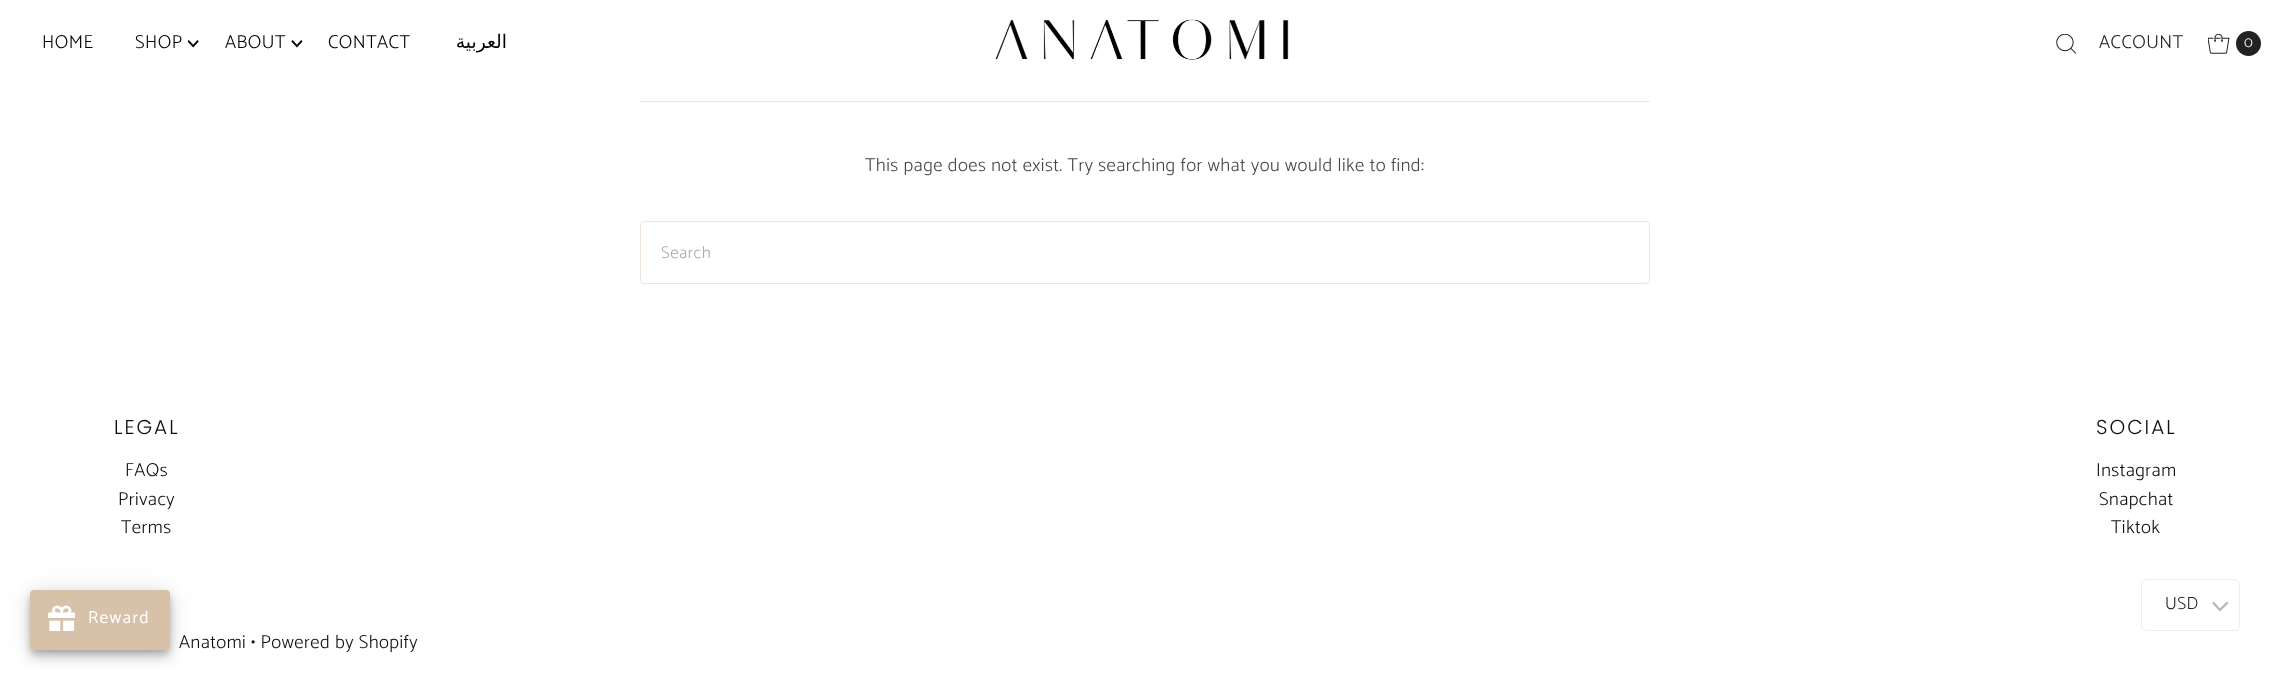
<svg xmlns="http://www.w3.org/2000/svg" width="2290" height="680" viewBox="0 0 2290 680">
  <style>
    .t1 { font: 300 18.75px Catamaran; letter-spacing: 0.47px; fill: #000; }
    .t2 { font: 18.75px DejaVu Sans; letter-spacing: 0.47px; direction: rtl; fill: #000; }
    .t3 { font: 300 18.75px Catamaran; letter-spacing: 0.47px; fill: #222; }
    .t4 { font: 300 15px Catamaran; fill: #fff; }
    .t5 { font: 300 18.75px Catamaran; letter-spacing: 0.47px; fill: #484848; }
    .t6 { font: 300 17px Catamaran; letter-spacing: 0.5px; fill: #aaa; }
    .t7 { font: 300 20px Poppins; letter-spacing: 2px; fill: #100f0f; }
    .t8 { font: 300 18.75px Catamaran; letter-spacing: 0.47px; fill: #100f0f; }
    .t9 { font: 300 17.5px Catamaran; letter-spacing: 0.47px; fill: #222; }
    .t10 { font: 100 17.5px Catamaran; letter-spacing: 1.25px; fill: #fff; }
  </style>
  <rect width="100%" height="100%" fill="#fff"/>
  <text x="42" y="48" class="t1">HOME</text>
  <text x="135" y="48" class="t1">SHOP</text>
  <image x="188" y="40" width="11" height="8" href="images/1.png"/>
  <text x="225" y="48" class="t1">ABOUT</text>
  <image x="291" y="40" width="12" height="8" href="images/2.png"/>
  <text x="328" y="48" class="t1">CONTACT</text>
  <text x="507" y="48" class="t2">العربية</text>
  <image x="995" y="19" width="294" height="41" href="images/3.png"/>
  <image x="2056" y="34" width="20" height="20" href="images/4.png"/>
  <text x="2099" y="48" class="t3">ACCOUNT</text>
  <image x="2208" y="34" width="22" height="20" href="images/5.png"/>
  <circle cx="2248.5" cy="43.5" r="12.5" fill="#222"/>
  <text x="2244" y="47" class="t4">0</text>
  <rect x="640" y="101" width="1010" height="1" fill="#efe5da"/>
  <text x="865" y="171" class="t5">This page does not exist. Try searching for what you would like to find:</text>
  <rect x="640.5" y="221.5" width="1009" height="62" rx="3.5" fill="none" stroke="#efe5da"/>
  <text x="661" y="258" class="t6">Search</text>
  <text x="114" y="434" class="t7">LEGAL</text>
  <text x="125" y="476" class="t8">FAQs</text>
  <text x="118" y="505" class="t8">Privacy</text>
  <text x="121" y="533" class="t8">Terms</text>
  <text x="2096" y="434" class="t7">SOCIAL</text>
  <text x="2096" y="476" class="t8">Instagram</text>
  <text x="2099" y="505" class="t8">Snapchat</text>
  <text x="2111" y="533" class="t8">Tiktok</text>
  <text x="179" y="648" class="t8">Anatomi • Powered by Shopify</text>
  <rect x="2141.5" y="579.5" width="98" height="51" rx="5.5" fill="none" stroke="#ededed"/>
  <text x="2165" y="609" class="t9">USD</text>
  <path d="M2213.5 603L2220 610L2227 603" fill="none" stroke="#b7b7b7" stroke-width="2.3" stroke-linecap="round" stroke-linejoin="round"/>
  <rect x="30" y="591" width="140" height="60" rx="4" fill="#0000001f" filter="blur(11px)"/>
  <rect x="30" y="598" width="140" height="60" rx="4" fill="#00000024" filter="blur(6px)"/>
  <rect x="31" y="595" width="138" height="58" rx="2.5" fill="#00000033" filter="blur(3px)"/>
  <rect x="30" y="590" width="140" height="60" rx="4" fill="#d7c2a9"/>
  <image x="48" y="605" width="27" height="26" href="images/6.png"/>
  <text x="88" y="623" class="t10">Reward</text>
</svg>
